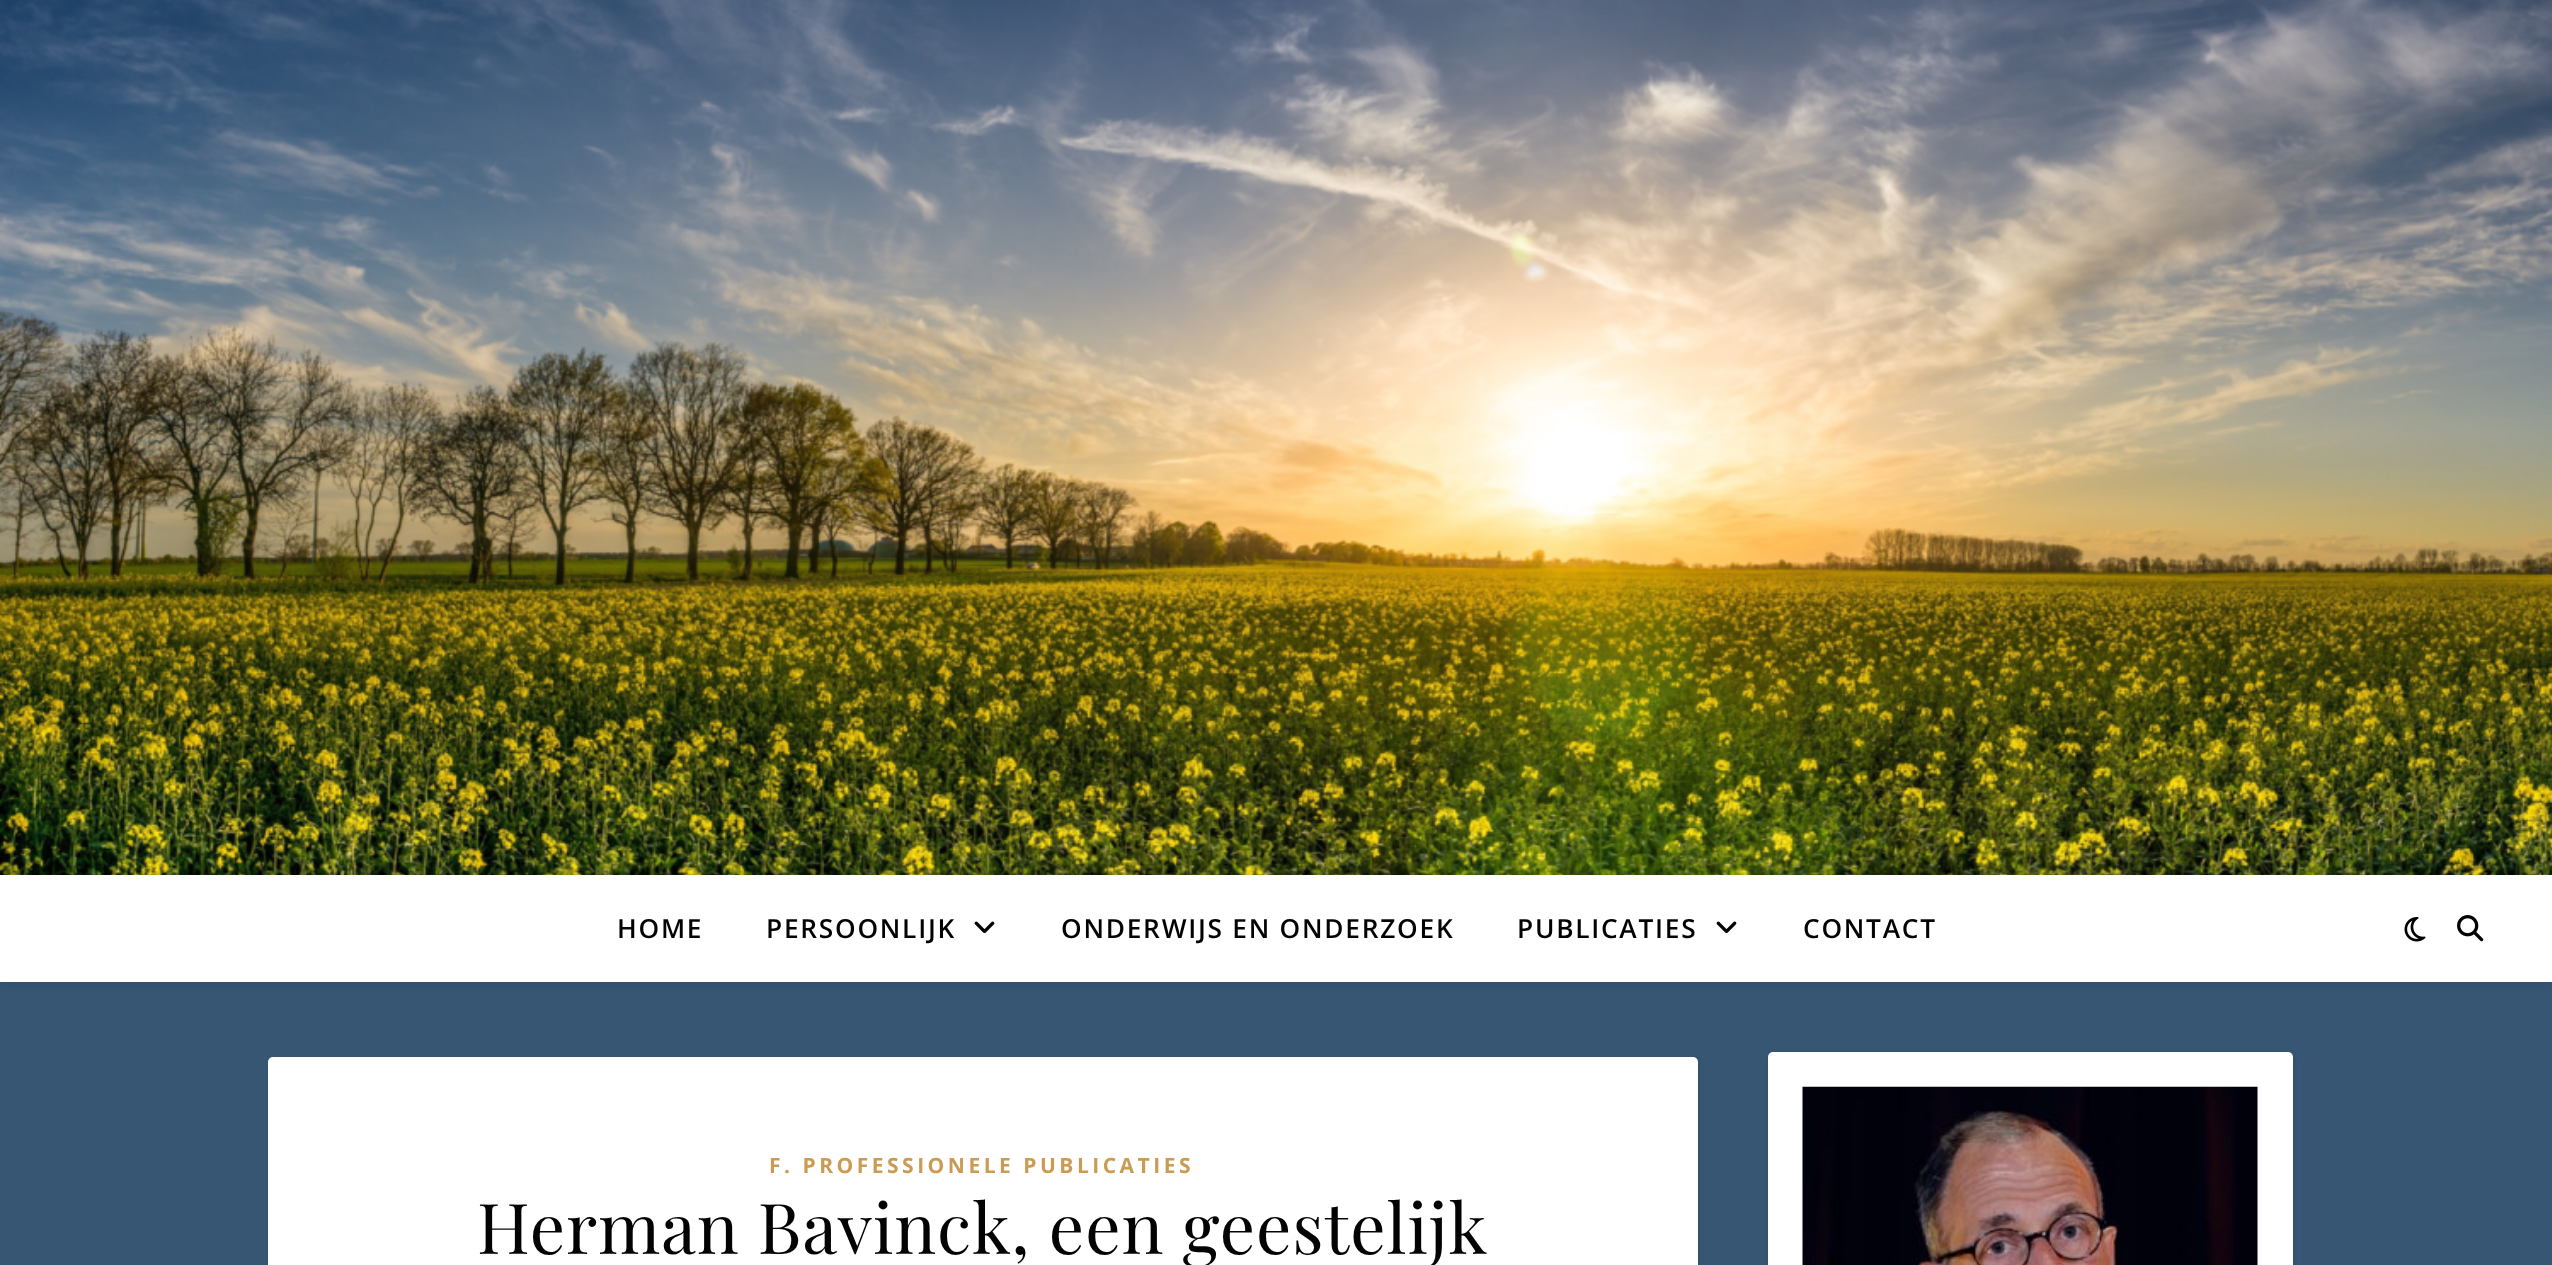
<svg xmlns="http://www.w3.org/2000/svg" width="2552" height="1265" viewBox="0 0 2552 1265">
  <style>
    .t1 { font: 600 26.25px Open Sans; letter-spacing: 1.75px; fill: #030303; }
    .t2 { font: bold 21px Open Sans; letter-spacing: 3.5px; fill: #ca9b52; }
    .t3 { font: 70px Playfair Display; letter-spacing: 0.9px; fill: #030303; }
  </style>
  <rect width="100%" height="100%" fill="#365673"/>
  <image x="0" y="0" width="2552" height="875" href="images/1.png"/>
  <rect x="0" y="877" width="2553" height="107" fill="#0000001a" filter="blur(4.5px)"/>
  <rect x="0" y="875" width="2552" height="107" fill="#fff"/>
  <text x="617" y="938" class="t1">HOME</text>
  <text x="766" y="938" class="t1">PERSOONLIJK</text>
  <image x="974" y="921" width="21" height="13" href="images/2.png"/>
  <text x="1061" y="938" class="t1">ONDERWIJS EN ONDERZOEK</text>
  <text x="1517" y="938" class="t1">PUBLICATIES</text>
  <image x="1716" y="921" width="21" height="13" href="images/2.png"/>
  <text x="1803" y="938" class="t1">CONTACT</text>
  <image x="2404" y="917" width="22" height="25" href="images/3.png"/>
  <image x="2457" y="915" width="27" height="27" href="images/4.png"/>
  <rect x="270" y="1059" width="1429" height="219" rx="5" fill="#0000001a" filter="blur(2.5px)"/>
  <rect x="268" y="1057" width="1430" height="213" rx="5" fill="#fff"/>
  <text x="769" y="1173" class="t2">F. PROFESSIONELE PUBLICATIES</text>
  <text x="477" y="1254" class="t3">Herman Bavinck, een geestelijk</text>
  <rect x="1769" y="1054" width="525" height="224" rx="5" fill="#0000001a" filter="blur(2.5px)"/>
  <rect x="1768" y="1052" width="525" height="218" rx="5" fill="#fff"/>
  <image x="1802" y="1086" width="456" height="179" href="images/5.png"/>
</svg>
